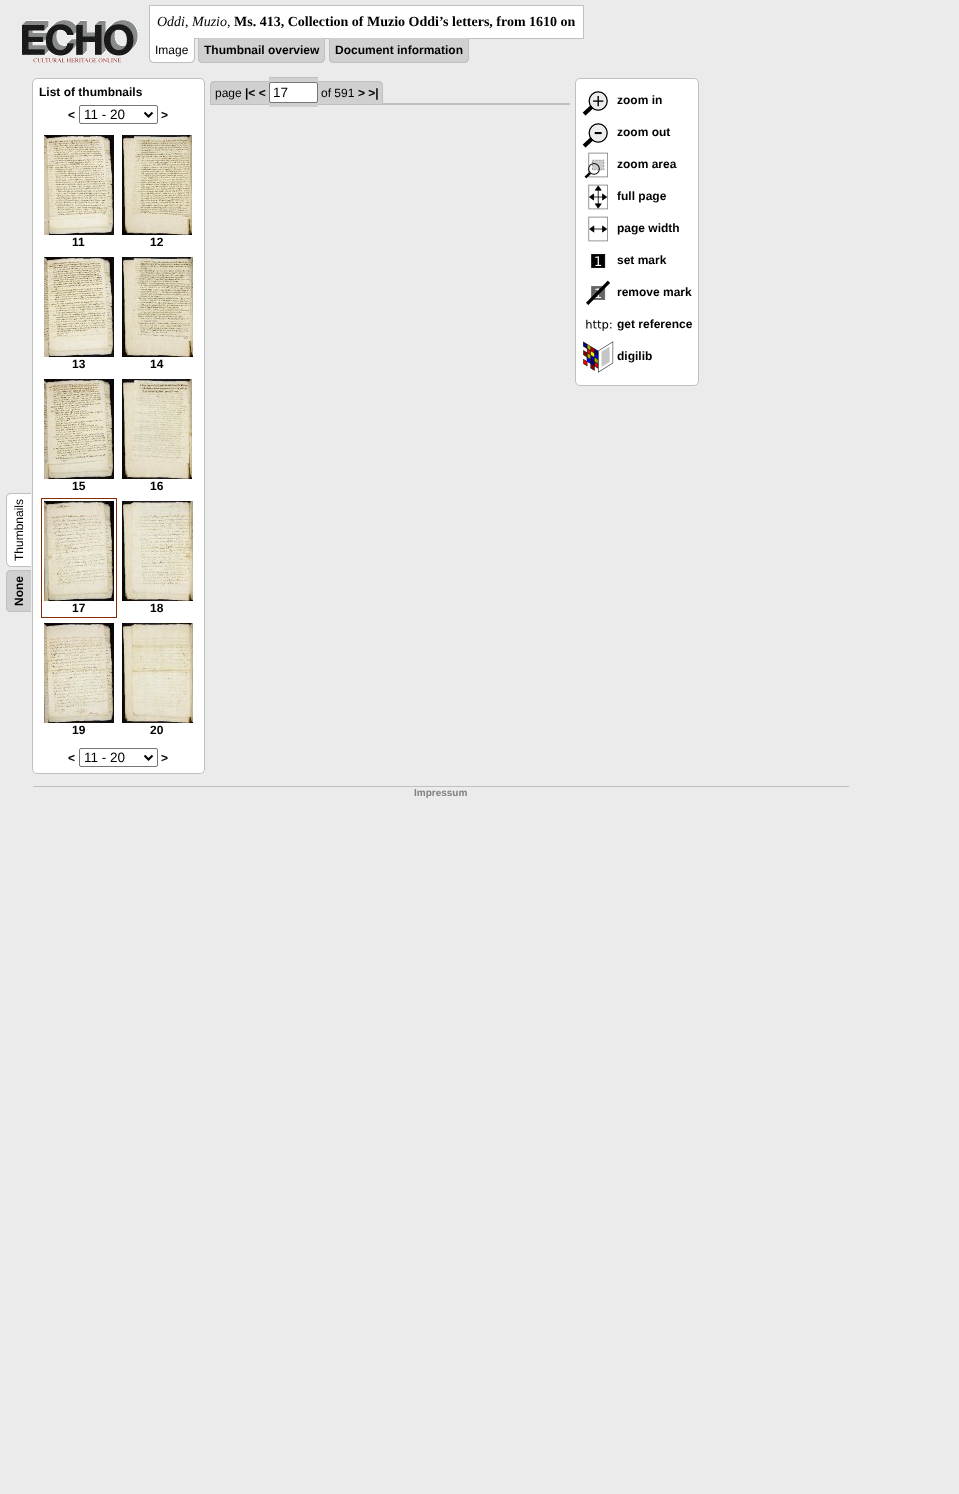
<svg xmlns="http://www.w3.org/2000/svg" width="959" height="1494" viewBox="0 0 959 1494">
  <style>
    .t1 { font: italic 14px Liberation Serif; fill: #000; }
    .t2 { font: 14px Liberation Serif; fill: #000; }
    .t3 { font: bold 14px Liberation Serif; fill: #000; }
    .t4 { font: 12px Liberation Sans; fill: #000; }
    .t5 { font: bold 12px Liberation Sans; fill: #000; }
    .t6 { font: 13.5px Liberation Sans; fill: #000; }
    .t7 { font: bold 10px Liberation Sans; fill: #808080; }
  </style>
  <rect width="100%" height="100%" fill="#ebebeb"/>
  <image x="22" y="20" width="116" height="43" href="images/1.png"/>
  <rect x="149.5" y="5.5" width="434" height="33" fill="#fff" stroke="#c0c0c0"/>
  <text x="157" y="26" class="t1">Oddi, Muzio</text>
  <text x="227" y="26" class="t2">,</text>
  <text x="234" y="26" class="t3">Ms. 413, Collection of Muzio Oddi’s letters, from 1610 on</text>
  <path d="M149 38H195V58C195 61 193 63 190 63H154C151 63 149 61 149 58Z" fill="#fff"/>
  <path d="M149 38H195V58C195 61 193 63 190 63H154C151 63 149 61 149 58ZM150 38H194V58C194 60 192 62 190 62H154C152 62 150 60 150 58Z" fill="#c0c0c0" fill-rule="evenodd"/>
  <text x="155" y="54" class="t4">Image</text>
  <path d="M198 38H325V58C325 61 323 63 320 63H203C200 63 198 61 198 58Z" fill="#d0d0d0"/>
  <path d="M198 38H325V58C325 61 323 63 320 63H203C200 63 198 61 198 58ZM199 38H324V58C324 60 322 62 320 62H203C201 62 199 60 199 58Z" fill="#c0c0c0" fill-rule="evenodd"/>
  <text x="204" y="54" class="t5">Thumbnail overview</text>
  <path d="M329 38H469V58C469 61 467 63 464 63H334C331 63 329 61 329 58Z" fill="#d0d0d0"/>
  <path d="M329 38H469V58C469 61 467 63 464 63H334C331 63 329 61 329 58ZM330 38H468V58C468 60 466 62 464 62H334C332 62 330 60 330 58Z" fill="#c0c0c0" fill-rule="evenodd"/>
  <text x="335" y="54" class="t5">Document information</text>
  <path d="M6 562V498C6 495 8 493 11 493H31V567H11C8 567 6 564 6 562Z" fill="#fff"/>
  <path d="M6 562V498C6 495 8 493 11 493H31V567H11C8 567 6 564 6 562ZM7 562V498C7 495 9 494 11 494H31V566H11C9 566 7 564 7 562Z" fill="#c0c0c0" fill-rule="evenodd"/>
  <text x="23" y="561" transform="rotate(-90 23 561)" class="t4">Thumbnails</text>
  <path d="M6 607V575C6 572 8 570 11 570H31V612H11C8 612 6 610 6 607Z" fill="#d0d0d0"/>
  <path d="M6 607V575C6 572 8 570 11 570H31V612H11C8 612 6 610 6 607ZM7 607V575C7 573 9 571 11 571H31V611H11C9 611 7 609 7 607Z" fill="#c0c0c0" fill-rule="evenodd"/>
  <text x="23" y="606" transform="rotate(-90 23 606)" class="t5">None</text>
  <rect x="32.5" y="78.5" width="172" height="695" rx="4.5" fill="#fff" stroke="#c0c0c0"/>
  <text x="39" y="96" class="t5">List of thumbnails</text>
  <text x="68" y="119" class="t5">&lt;</text>
  <rect x="79.5" y="105.5" width="78" height="18" rx="1.5" fill="none" stroke="#767676"/>
  <path d="M144.5 112.5L148.5 116.5L152.5 112.5" fill="none" stroke="#000" stroke-width="2"/>
  <text x="84" y="119" class="t6">11 - 20</text>
  <text x="161" y="119" class="t5">&gt;</text>
  <image x="44" y="135" width="70" height="100" href="images/2.png"/>
  <text x="72" y="246" class="t5">11</text>
  <image x="122" y="135" width="70" height="100" href="images/3.png"/>
  <text x="150" y="246" class="t5">12</text>
  <image x="44" y="257" width="70" height="100" href="images/4.png"/>
  <text x="72" y="368" class="t5">13</text>
  <image x="122" y="257" width="71" height="100" href="images/5.png"/>
  <text x="150" y="368" class="t5">14</text>
  <image x="44" y="379" width="70" height="100" href="images/6.png"/>
  <text x="72" y="490" class="t5">15</text>
  <image x="122" y="379" width="70" height="100" href="images/7.png"/>
  <text x="150" y="490" class="t5">16</text>
  <rect x="41.5" y="498.5" width="75" height="119" fill="none" stroke="#892b06"/>
  <image x="44" y="501" width="70" height="100" href="images/8.png"/>
  <text x="72" y="612" class="t5">17</text>
  <image x="122" y="501" width="71" height="100" href="images/9.png"/>
  <text x="150" y="612" class="t5">18</text>
  <image x="44" y="623" width="70" height="100" href="images/10.png"/>
  <text x="72" y="734" class="t5">19</text>
  <image x="122" y="623" width="71" height="100" href="images/11.png"/>
  <text x="150" y="734" class="t5">20</text>
  <text x="68" y="762" class="t5">&lt;</text>
  <rect x="79.5" y="748.5" width="78" height="18" rx="1.5" fill="none" stroke="#767676"/>
  <path d="M144.5 755.5L148.5 759.5L152.5 755.5" fill="none" stroke="#000" stroke-width="2"/>
  <text x="84" y="762" class="t6">11 - 20</text>
  <text x="161" y="762" class="t5">&gt;</text>
  <rect x="210" y="103" width="360" height="2" fill="#c0c0c0"/>
  <path d="M215 81H245V104H210V86C210 83 212 81 215 81Z" fill="#d0d0d0"/>
  <path d="M215 81H245V104H210V86C210 83 212 81 215 81ZM215 82H245V104H211V86C211 84 213 82 215 82Z" fill="#c0c0c0" fill-rule="evenodd"/>
  <rect x="245" y="82" width="10" height="22" fill="#d0d0d0"/>
  <rect x="245" y="81" width="10" height="1" fill="#c0c0c0"/>
  <rect x="255" y="81" width="14" height="23" fill="#d0d0d0"/>
  <rect x="255" y="81" width="14" height="1" fill="#c0c0c0"/>
  <rect x="269" y="78" width="49" height="29" fill="#d0d0d0"/>
  <rect x="269" y="77" width="49" height="1" fill="#c0c0c0"/>
  <rect x="318" y="81" width="3" height="23" fill="#d0d0d0"/>
  <rect x="318" y="81" width="40" height="1" fill="#c0c0c0"/>
  <rect x="321" y="82" width="37" height="22" fill="#d0d0d0"/>
  <rect x="358" y="81" width="10" height="23" fill="#d0d0d0"/>
  <rect x="358" y="81" width="10" height="1" fill="#c0c0c0"/>
  <path d="M368 81H378C381 81 383 83 383 86V104H368Z" fill="#d0d0d0"/>
  <path d="M368 81H378C381 81 383 83 383 86V104H368ZM368 82H378C380 82 382 84 382 86V104H368Z" fill="#c0c0c0" fill-rule="evenodd"/>
  <text x="215" y="97" class="t4">page</text>
  <text x="245" y="97" class="t5">|&lt; &lt;</text>
  <rect x="269.5" y="82.5" width="48" height="20" rx="1.5" fill="#fff" stroke="#767676"/>
  <text x="273" y="97" class="t6">17</text>
  <text x="321" y="97" class="t4">of 591</text>
  <text x="358" y="97" class="t5">&gt; &gt;|</text>
  <rect x="575.5" y="78.5" width="123" height="307" rx="4.5" fill="#fff" stroke="#c0c0c0"/>
  <image x="582" y="91" width="26" height="25" href="images/12.png"/>
  <text x="617" y="104" class="t5">zoom in</text>
  <image x="582" y="123" width="26" height="25" href="images/13.png"/>
  <text x="617" y="136" class="t5">zoom out</text>
  <image x="584" y="152" width="24" height="27" href="images/14.png"/>
  <text x="617" y="168" class="t5">zoom area</text>
  <image x="588" y="184" width="20" height="26" href="images/15.png"/>
  <text x="617" y="200" class="t5">full page</text>
  <image x="588" y="216" width="20" height="26" href="images/16.png"/>
  <text x="617" y="232" class="t5">page width</text>
  <image x="591" y="254" width="15" height="14" href="images/17.png"/>
  <text x="617" y="264" class="t5">set mark</text>
  <image x="586" y="280" width="24" height="25" href="images/18.png"/>
  <text x="617" y="296" class="t5">remove mark</text>
  <image x="586" y="319" width="26" height="12" href="images/19.png"/>
  <text x="617" y="328" class="t5">get reference</text>
  <image x="583" y="341" width="31" height="32" href="images/20.png"/>
  <text x="617" y="360" class="t5">digilib</text>
  <rect x="33" y="786" width="816" height="1" fill="#c0c0c0"/>
  <text x="414" y="796" class="t7">Impressum</text>
</svg>
